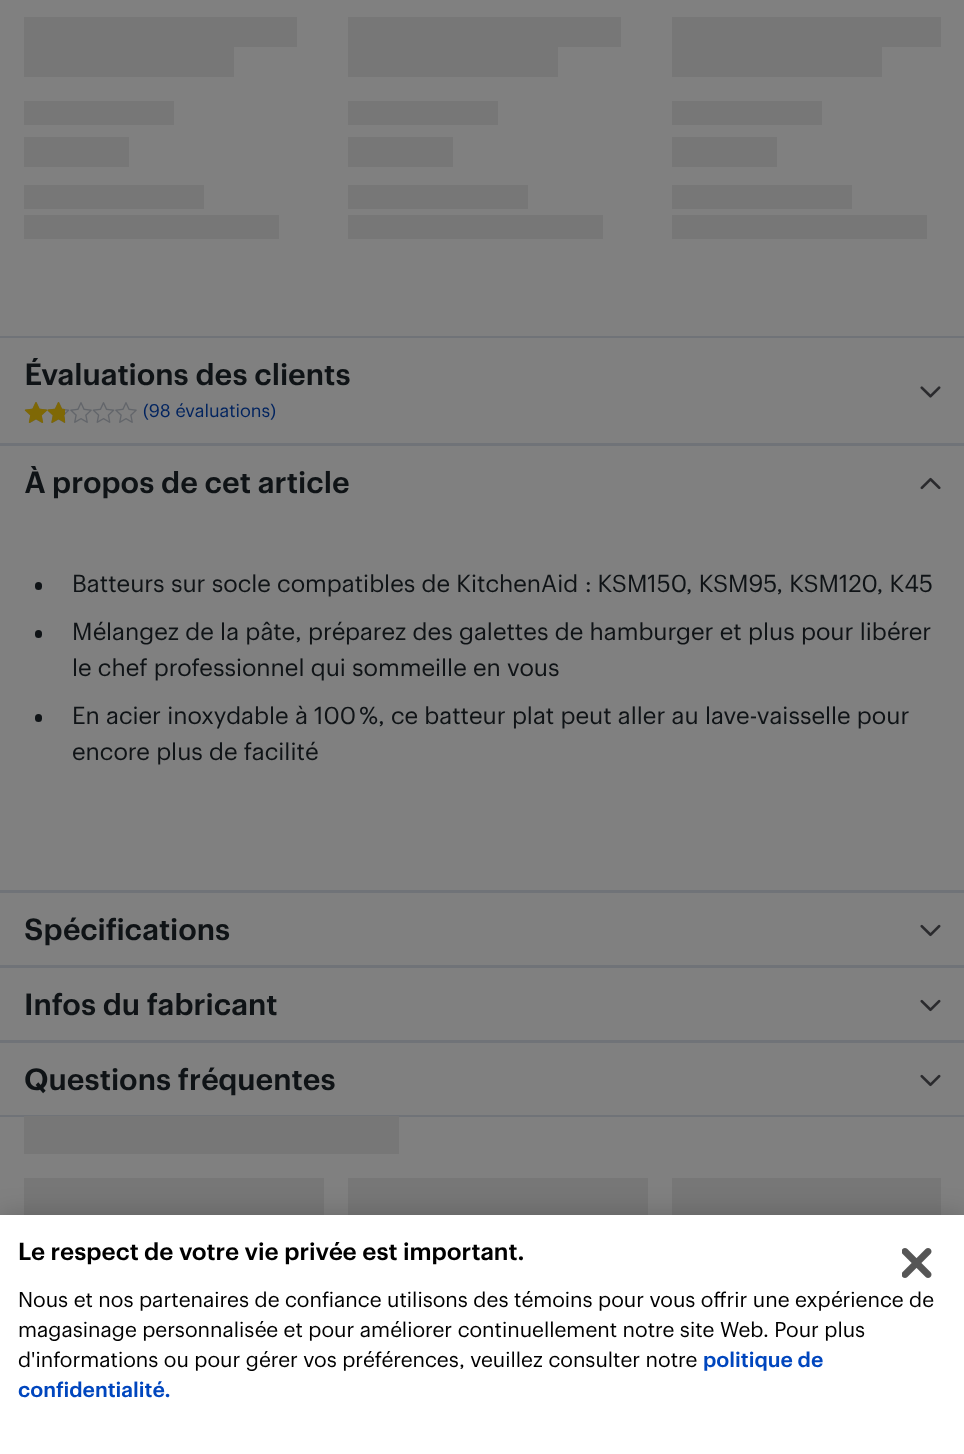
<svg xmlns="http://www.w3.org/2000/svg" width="964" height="1454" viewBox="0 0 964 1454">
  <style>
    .t1 { font: 500 30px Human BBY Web; fill: #0f1316; }
    .t2 { font: 18px Human BBY Web; fill: #00235f; }
    .t3 { font: 24px Human BBY Web; fill: #0f1316; }
    .t4 { font: 500 24px Human BBY Web; fill: #000; }
    .t5 { font: 21px Human BBY Web; fill: #000; }
    .t6 { font: 500 21px Human BBY Web; fill: #0046be; }
  </style>
  <defs>
    <linearGradient id="g1" gradientUnits="userSpaceOnUse" x1="-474" y1="95" x2="726" y2="94"><stop offset="0.08" stop-color="#777"/><stop offset="0.18" stop-color="#6f6f6f"/><stop offset="0.33" stop-color="#777"/></linearGradient>
    <linearGradient id="g2" gradientUnits="userSpaceOnUse" x1="-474" y1="125" x2="726" y2="124"><stop offset="0.08" stop-color="#777"/><stop offset="0.18" stop-color="#6f6f6f"/><stop offset="0.33" stop-color="#777"/></linearGradient>
    <linearGradient id="g3" gradientUnits="userSpaceOnUse" x1="-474" y1="179" x2="726" y2="178"><stop offset="0.08" stop-color="#777"/><stop offset="0.18" stop-color="#6f6f6f"/><stop offset="0.33" stop-color="#777"/></linearGradient>
    <linearGradient id="g4" gradientUnits="userSpaceOnUse" x1="-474" y1="215" x2="726" y2="214"><stop offset="0.08" stop-color="#777"/><stop offset="0.18" stop-color="#6f6f6f"/><stop offset="0.33" stop-color="#777"/></linearGradient>
    <linearGradient id="g5" gradientUnits="userSpaceOnUse" x1="-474" y1="263" x2="726" y2="262"><stop offset="0.08" stop-color="#777"/><stop offset="0.18" stop-color="#6f6f6f"/><stop offset="0.33" stop-color="#777"/></linearGradient>
    <linearGradient id="g6" gradientUnits="userSpaceOnUse" x1="-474" y1="293" x2="726" y2="292"><stop offset="0.08" stop-color="#777"/><stop offset="0.18" stop-color="#6f6f6f"/><stop offset="0.33" stop-color="#777"/></linearGradient>
    <linearGradient id="g7" gradientUnits="userSpaceOnUse" x1="-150" y1="95" x2="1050" y2="94"><stop offset="0.08" stop-color="#777"/><stop offset="0.18" stop-color="#6f6f6f"/><stop offset="0.33" stop-color="#777"/></linearGradient>
    <linearGradient id="g8" gradientUnits="userSpaceOnUse" x1="-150" y1="125" x2="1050" y2="124"><stop offset="0.08" stop-color="#777"/><stop offset="0.18" stop-color="#6f6f6f"/><stop offset="0.33" stop-color="#777"/></linearGradient>
    <linearGradient id="g9" gradientUnits="userSpaceOnUse" x1="-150" y1="179" x2="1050" y2="178"><stop offset="0.08" stop-color="#777"/><stop offset="0.18" stop-color="#6f6f6f"/><stop offset="0.33" stop-color="#777"/></linearGradient>
    <linearGradient id="g10" gradientUnits="userSpaceOnUse" x1="-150" y1="215" x2="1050" y2="214"><stop offset="0.08" stop-color="#777"/><stop offset="0.18" stop-color="#6f6f6f"/><stop offset="0.33" stop-color="#777"/></linearGradient>
    <linearGradient id="g11" gradientUnits="userSpaceOnUse" x1="-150" y1="263" x2="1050" y2="262"><stop offset="0.08" stop-color="#777"/><stop offset="0.18" stop-color="#6f6f6f"/><stop offset="0.33" stop-color="#777"/></linearGradient>
    <linearGradient id="g12" gradientUnits="userSpaceOnUse" x1="-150" y1="293" x2="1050" y2="292"><stop offset="0.08" stop-color="#777"/><stop offset="0.18" stop-color="#6f6f6f"/><stop offset="0.33" stop-color="#777"/></linearGradient>
    <linearGradient id="g13" gradientUnits="userSpaceOnUse" x1="174" y1="95" x2="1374" y2="94"><stop offset="0.08" stop-color="#777"/><stop offset="0.18" stop-color="#6f6f6f"/><stop offset="0.33" stop-color="#777"/></linearGradient>
    <linearGradient id="g14" gradientUnits="userSpaceOnUse" x1="174" y1="125" x2="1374" y2="124"><stop offset="0.08" stop-color="#777"/><stop offset="0.18" stop-color="#6f6f6f"/><stop offset="0.33" stop-color="#777"/></linearGradient>
    <linearGradient id="g15" gradientUnits="userSpaceOnUse" x1="174" y1="179" x2="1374" y2="178"><stop offset="0.08" stop-color="#777"/><stop offset="0.18" stop-color="#6f6f6f"/><stop offset="0.33" stop-color="#777"/></linearGradient>
    <linearGradient id="g16" gradientUnits="userSpaceOnUse" x1="174" y1="215" x2="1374" y2="214"><stop offset="0.08" stop-color="#777"/><stop offset="0.18" stop-color="#6f6f6f"/><stop offset="0.33" stop-color="#777"/></linearGradient>
    <linearGradient id="g17" gradientUnits="userSpaceOnUse" x1="174" y1="263" x2="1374" y2="262"><stop offset="0.08" stop-color="#777"/><stop offset="0.18" stop-color="#6f6f6f"/><stop offset="0.33" stop-color="#777"/></linearGradient>
    <linearGradient id="g18" gradientUnits="userSpaceOnUse" x1="174" y1="293" x2="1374" y2="292"><stop offset="0.08" stop-color="#777"/><stop offset="0.18" stop-color="#6f6f6f"/><stop offset="0.33" stop-color="#777"/></linearGradient>
    <linearGradient id="g19" gradientUnits="userSpaceOnUse" x1="-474" y1="1194" x2="726" y2="1194"><stop offset="0.08" stop-color="#777"/><stop offset="0.18" stop-color="#6f6f6f"/><stop offset="0.33" stop-color="#777"/></linearGradient>
    <linearGradient id="g20" gradientUnits="userSpaceOnUse" x1="-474" y1="1256" x2="726" y2="1256"><stop offset="0.08" stop-color="#777"/><stop offset="0.18" stop-color="#6f6f6f"/><stop offset="0.33" stop-color="#777"/></linearGradient>
    <linearGradient id="g21" gradientUnits="userSpaceOnUse" x1="-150" y1="1256" x2="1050" y2="1256"><stop offset="0.08" stop-color="#777"/><stop offset="0.18" stop-color="#6f6f6f"/><stop offset="0.33" stop-color="#777"/></linearGradient>
    <linearGradient id="g22" gradientUnits="userSpaceOnUse" x1="174" y1="1256" x2="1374" y2="1256"><stop offset="0.08" stop-color="#777"/><stop offset="0.18" stop-color="#6f6f6f"/><stop offset="0.33" stop-color="#777"/></linearGradient>
  </defs>
  <rect width="100%" height="100%" fill="#808080"/>
  <rect x="24" y="17" width="273" height="30" fill="url(#g1)"/>
  <rect x="24" y="47" width="210" height="30" fill="url(#g2)"/>
  <rect x="24" y="101" width="150" height="24" fill="url(#g3)"/>
  <rect x="24" y="137" width="105" height="30" fill="url(#g4)"/>
  <rect x="24" y="185" width="180" height="24" fill="url(#g5)"/>
  <rect x="24" y="215" width="255" height="24" fill="url(#g6)"/>
  <rect x="348" y="17" width="273" height="30" fill="url(#g7)"/>
  <rect x="348" y="47" width="210" height="30" fill="url(#g8)"/>
  <rect x="348" y="101" width="150" height="24" fill="url(#g9)"/>
  <rect x="348" y="137" width="105" height="30" fill="url(#g10)"/>
  <rect x="348" y="185" width="180" height="24" fill="url(#g11)"/>
  <rect x="348" y="215" width="255" height="24" fill="url(#g12)"/>
  <rect x="672" y="17" width="269" height="30" fill="url(#g13)"/>
  <rect x="672" y="47" width="210" height="30" fill="url(#g14)"/>
  <rect x="672" y="101" width="150" height="24" fill="url(#g15)"/>
  <rect x="672" y="137" width="105" height="30" fill="url(#g16)"/>
  <rect x="672" y="185" width="180" height="24" fill="url(#g17)"/>
  <rect x="672" y="215" width="255" height="24" fill="url(#g18)"/>
  <rect x="0" y="336" width="964" height="2" fill="#707378"/>
  <rect x="0" y="443" width="964" height="3" fill="#707378"/>
  <text x="24" y="385" class="t1">Évaluations des clients</text>
  <image x="25" y="402" width="22" height="21" href="images/2.png"/>
  <image x="24" y="402" width="23" height="21" href="images/1.png"/>
  <image x="47" y="402" width="23" height="21" href="images/3.png"/>
  <image x="47" y="402" width="18" height="21" href="images/4.png"/>
  <image x="70" y="402" width="22" height="21" href="images/2.png"/>
  <image x="92" y="402" width="23" height="21" href="images/3.png"/>
  <image x="115" y="402" width="22" height="21" href="images/2.png"/>
  <text x="143" y="417" class="t2">(98 évaluations)</text>
  <image x="920" y="386" width="21" height="12" href="images/5.png"/>
  <rect x="0" y="890" width="964" height="3" fill="#707378"/>
  <text x="24" y="493" class="t1">À propos de cet article</text>
  <image x="920" y="477" width="21" height="13" href="images/6.png"/>
  <rect x="35" y="582" width="7" height="8" rx="3.5" fill="#0f1316"/>
  <text x="72" y="592" class="t3">Batteurs sur socle compatibles de KitchenAid : KSM150, KSM95, KSM120, K45</text>
  <rect x="35" y="630" width="7" height="8" rx="3.5" fill="#0f1316"/>
  <text x="72" y="640" class="t3">Mélangez de la pâte, préparez des galettes de hamburger et plus pour libérer</text>
  <text x="72" y="676" class="t3">le chef professionnel qui sommeille en vous</text>
  <rect x="35" y="714" width="7" height="8" rx="3.5" fill="#0f1316"/>
  <text x="72" y="724" class="t3">En acier inoxydable à 100 %, ce batteur plat peut aller au lave-vaisselle pour</text>
  <text x="72" y="760" class="t3">encore plus de facilité</text>
  <rect x="0" y="965" width="964" height="3" fill="#707378"/>
  <text x="24" y="940" class="t1">Spécifications</text>
  <image x="920" y="924" width="21" height="13" href="images/7.png"/>
  <rect x="0" y="1040" width="964" height="3" fill="#707378"/>
  <text x="24" y="1015" class="t1">Infos du fabricant</text>
  <image x="920" y="999" width="21" height="13" href="images/7.png"/>
  <rect x="0" y="1115" width="964" height="2" fill="#707378"/>
  <text x="24" y="1090" class="t1">Questions fréquentes</text>
  <image x="920" y="1074" width="21" height="13" href="images/7.png"/>
  <rect x="24" y="1116" width="375" height="38" fill="url(#g19)"/>
  <rect x="24" y="1178" width="300" height="37" fill="url(#g20)"/>
  <rect x="348" y="1178" width="300" height="37" fill="url(#g21)"/>
  <rect x="672" y="1178" width="269" height="37" fill="url(#g22)"/>
  <rect x="0" y="1215" width="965" height="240" fill="#00000033" filter="blur(13.5px)"/>
  <rect x="0" y="1215" width="964" height="239" fill="#fff"/>
  <text x="18" y="1260" class="t4">Le respect de votre vie privée est important.</text>
  <text x="18" y="1307" class="t5">Nous et nos partenaires de confiance utilisons des témoins pour vous offrir une expérience de</text>
  <text x="18" y="1337" class="t5">magasinage personnalisée et pour améliorer continuellement notre site Web. Pour plus</text>
  <text x="18" y="1367" class="t5">d'informations ou pour gérer vos préférences, veuillez consulter notre</text>
  <text x="703" y="1367" class="t6">politique de</text>
  <text x="18" y="1397" class="t6">confidentialité.</text>
  <image x="902" y="1248" width="30" height="30" href="images/8.png"/>
</svg>
